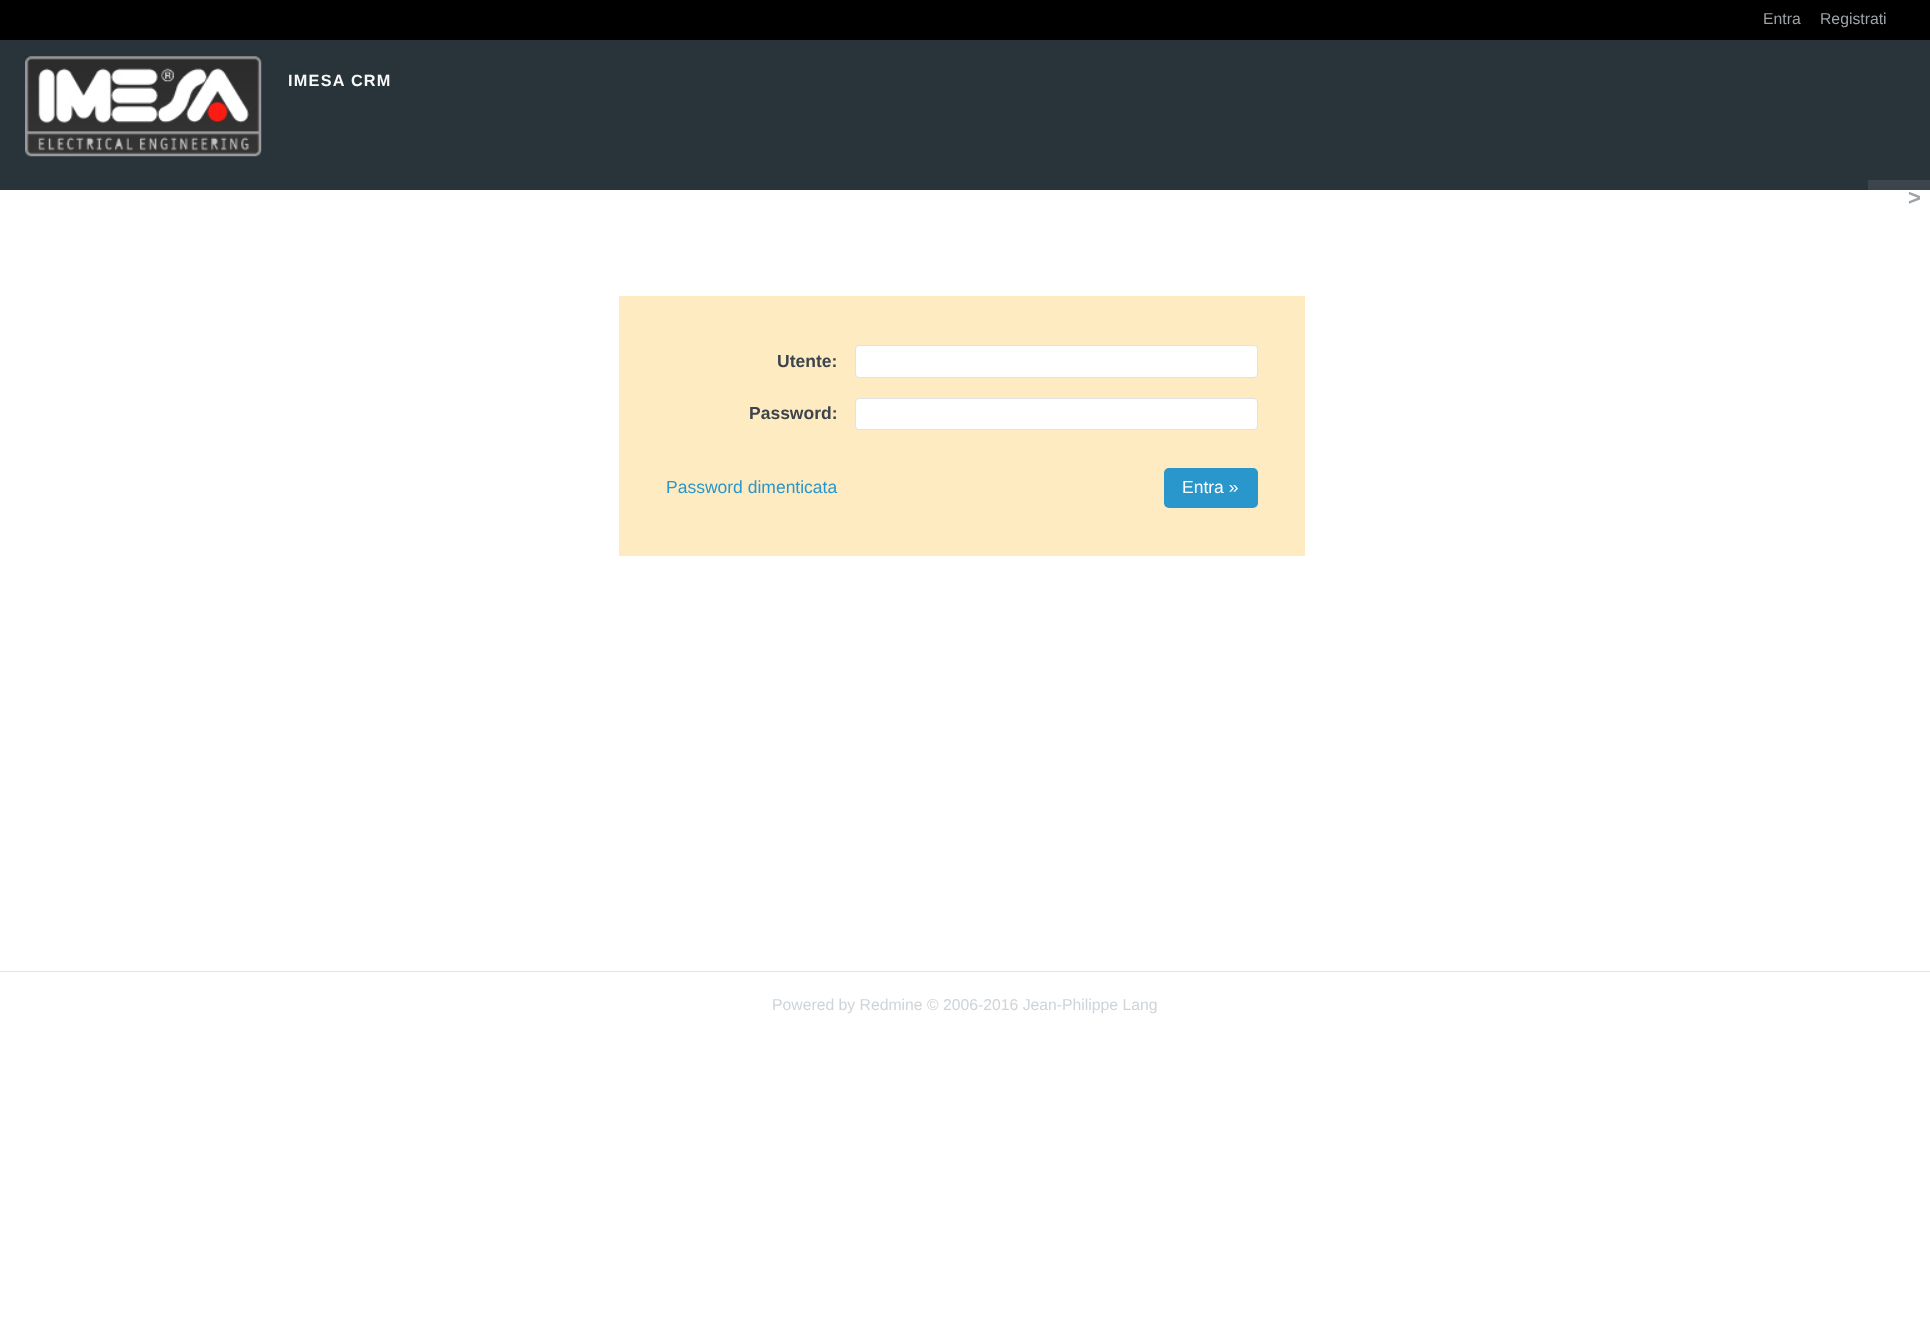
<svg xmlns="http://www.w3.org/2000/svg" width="1930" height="1322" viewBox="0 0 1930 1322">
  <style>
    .t1 { font: 15.75px Liberation Sans; fill: #9da2a6; }
    .t2 { font: bold 16.25px Liberation Sans; letter-spacing: 1.25px; fill: #f8f8f8; }
    .t3 { font: bold 22px Liberation Sans; fill: #9da2a6; }
    .t4 { font: bold 17.5px Liberation Sans; fill: #3d454c; }
    .t5 { font: 17.5px Liberation Sans; fill: #2996cc; }
    .t6 { font: 17.5px Liberation Sans; fill: #fff; }
    .t7 { font: 15.75px Liberation Sans; fill: #ced4d9; }
  </style>
  <rect width="100%" height="100%" fill="#fff"/>
  <rect x="0" y="0" width="1930" height="40" fill="#000"/>
  <text x="1763" y="24" class="t1">Entra</text>
  <text x="1820" y="24" class="t1">Registrati</text>
  <rect x="0" y="40" width="1930" height="150" fill="#29333a"/>
  <image x="25" y="56" width="237" height="101" href="images/1.png"/>
  <text x="288" y="86" class="t2">IMESA CRM</text>
  <rect x="1868" y="180" width="62" height="10" fill="#3d454c"/>
  <text x="1908" y="205" class="t3">&gt;</text>
  <rect x="619" y="296" width="686" height="260" fill="#ffebc1"/>
  <text x="777" y="367" class="t4">Utente:</text>
  <rect x="855.5" y="345.5" width="402" height="32" rx="3.5" fill="#fff" stroke="#e0e2e3"/>
  <text x="749" y="419" class="t4">Password:</text>
  <rect x="855.5" y="398.5" width="402" height="31" rx="3.5" fill="#fff" stroke="#e0e2e3"/>
  <text x="666" y="493" class="t5">Password dimenticata</text>
  <rect x="1164" y="468" width="94" height="40" rx="5" fill="#2996cc"/>
  <text x="1182" y="493" class="t6">Entra »</text>
  <rect x="0" y="971" width="1930" height="1" fill="#e0e2e3"/>
  <text x="772" y="1010" class="t7">Powered by Redmine © 2006-2016 Jean-Philippe Lang</text>
</svg>
